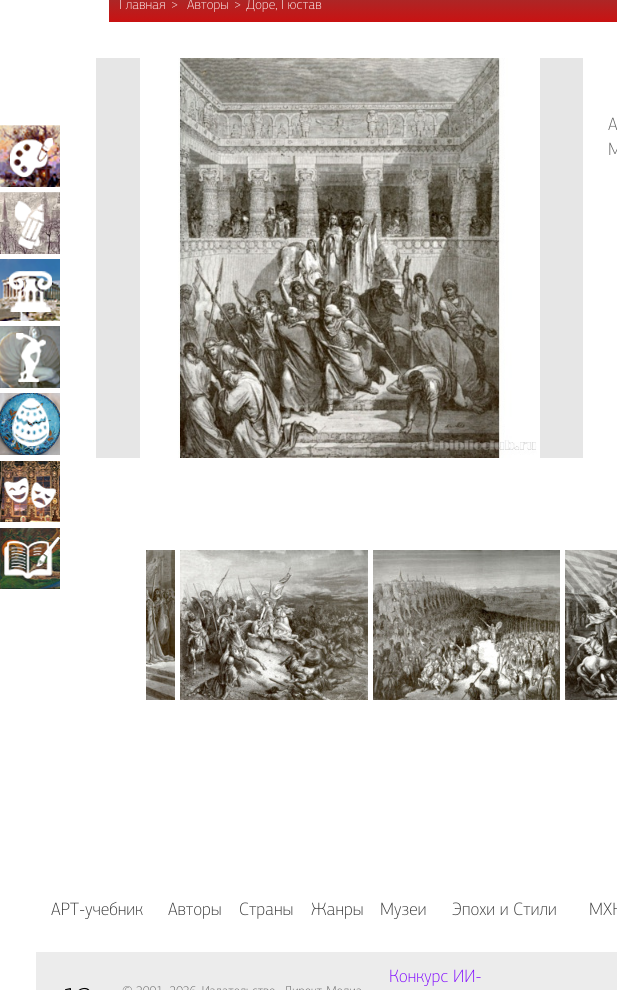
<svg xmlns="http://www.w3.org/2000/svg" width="617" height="990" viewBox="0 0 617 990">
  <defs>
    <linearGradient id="g1" gradientUnits="userSpaceOnUse" x1="497" y1="-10" x2="497" y2="22"><stop offset="0" stop-color="#a12f2f"/><stop offset="1" stop-color="#c91212"/></linearGradient>
  </defs>
  <rect width="100%" height="100%" fill="#fff"/>
  <image x="0" y="125" width="60" height="62" href="images/1.png"/>
  <image x="0" y="192" width="60" height="62" href="images/2.png"/>
  <image x="0" y="259" width="60" height="62" href="images/3.png"/>
  <image x="0" y="326" width="60" height="62" href="images/4.png"/>
  <image x="0" y="393" width="60" height="62" href="images/5.png"/>
  <image x="0" y="460" width="60" height="62" href="images/6.png"/>
  <image x="0" y="527" width="60" height="62" href="images/7.png"/>
  <rect x="109" y="0" width="508" height="22" fill="url(#g1)"/>
  <image x="120" y="0" width="45" height="10" href="images/8.png"/>
  <image x="172" y="2" width="6" height="6" href="images/9.png"/>
  <image x="187" y="0" width="41" height="12" href="images/10.png"/>
  <image x="235" y="2" width="6" height="6" href="images/9.png"/>
  <image x="246" y="0" width="76" height="12" href="images/11.png"/>
  <rect x="96" y="58" width="487" height="400" fill="#e6e6e6"/>
  <image x="140" y="58" width="400" height="400" href="images/12.png"/>
  <image x="608" y="117" width="9" height="13" href="images/13.png"/>
  <image x="609" y="142" width="8" height="13" href="images/14.png"/>
  <image x="146" y="550" width="29" height="150" href="images/15.png"/>
  <image x="180" y="550" width="188" height="150" href="images/16.png"/>
  <image x="373" y="550" width="187" height="150" href="images/17.png"/>
  <image x="565" y="550" width="52" height="150" href="images/18.png"/>
  <image x="51" y="901" width="92" height="18" href="images/19.png"/>
  <image x="168" y="902" width="53" height="17" href="images/20.png"/>
  <image x="240" y="902" width="53" height="17" href="images/21.png"/>
  <image x="311" y="902" width="52" height="17" href="images/22.png"/>
  <image x="381" y="902" width="45" height="17" href="images/23.png"/>
  <image x="452" y="902" width="104" height="14" href="images/24.png"/>
  <image x="590" y="902" width="27" height="13" href="images/25.png"/>
  <rect x="36" y="952" width="581" height="38" fill="#ececec"/>
  <image x="390" y="969" width="91" height="17" href="images/26.png"/>
  <image x="65" y="987" width="25" height="3" href="images/27.png"/>
  <image x="122" y="986" width="239" height="4" href="images/28.png"/>
</svg>
